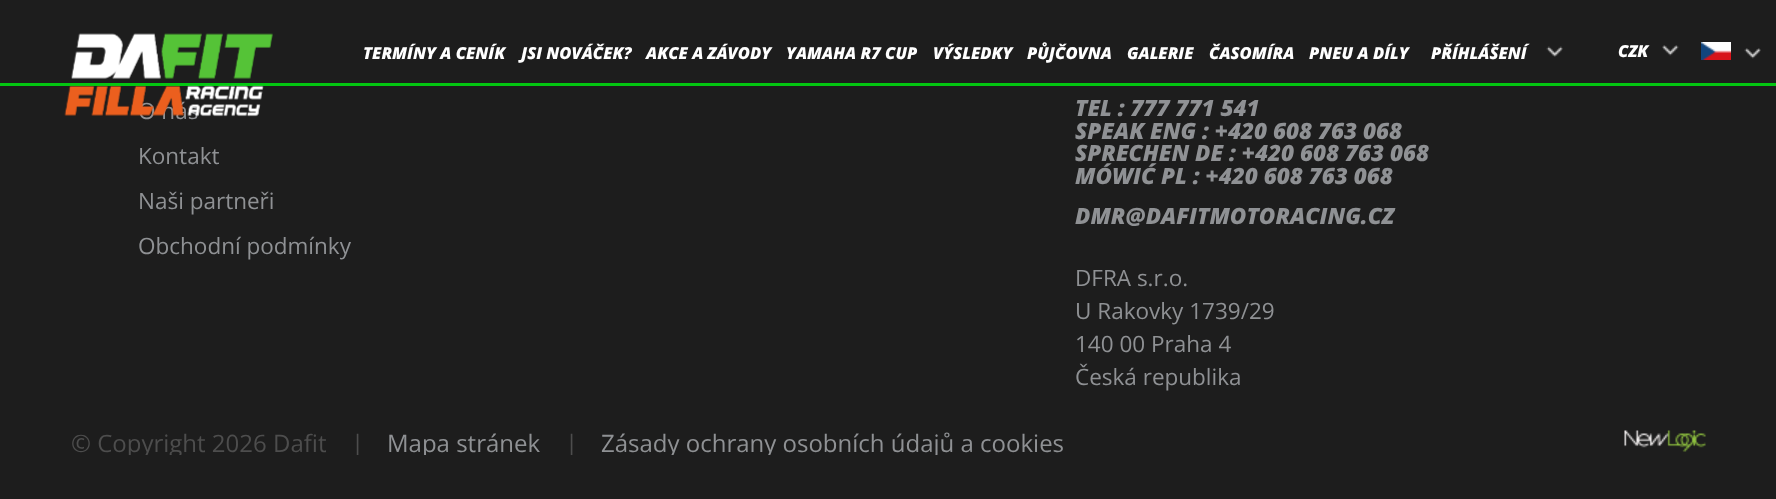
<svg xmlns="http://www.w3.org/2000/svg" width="1776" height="499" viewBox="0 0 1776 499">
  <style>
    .t1 { font: 22.5px Open Sans; fill: #8f9194; }
    .t2 { font: italic 800 16.5px Open Sans; fill: #fff; }
    .t3 { font: italic 800 22.5px Open Sans; fill: #8f9194; }
    .t4 { font: 24px Open Sans; fill: #4d4d4d; }
    .t5 { font: 24px Open Sans; fill: #8f9194; }
  </style>
  <defs>
    <clipPath id="clip1"><rect x="36" y="0" width="1704" height="455"/></clipPath>
  </defs>
  <rect width="100%" height="100%" fill="#1d1d1d"/>
  <rect x="0" y="83" width="1776" height="3" fill="#03c611"/>
  <text x="138" y="119" class="t1">O nás</text>
  <image x="64" y="33" width="209" height="84" href="images/1.png"/>
  <text x="363" y="59" class="t2">TERMÍNY A CENÍK</text>
  <text x="521" y="59" class="t2">JSI NOVÁČEK?</text>
  <text x="646" y="59" class="t2">AKCE A ZÁVODY</text>
  <text x="786" y="59" class="t2">YAMAHA R7 CUP</text>
  <text x="933" y="59" class="t2">VÝSLEDKY</text>
  <text x="1027" y="59" class="t2">PŮJČOVNA</text>
  <text x="1127" y="59" class="t2">GALERIE</text>
  <text x="1209" y="59" class="t2">ČASOMÍRA</text>
  <text x="1309" y="59" class="t2">PNEU A DÍLY</text>
  <text x="1431" y="59" class="t2">PŘÍHLÁŠENÍ</text>
  <image x="1546" y="46" width="17" height="11" href="images/2.png"/>
  <text x="1618" y="57" class="t2">CZK</text>
  <image x="1662" y="45" width="17" height="11" href="images/3.png"/>
  <image x="1701" y="42" width="30" height="18" href="images/4.png"/>
  <image x="1744" y="48" width="17" height="11" href="images/5.png"/>
  <text x="138" y="164" class="t1">Kontakt</text>
  <text x="138" y="209" class="t1">Naši partneři</text>
  <text x="138" y="254" class="t1">Obchodní podmínky</text>
  <text x="1075" y="116" class="t3">TEL : 777 771 541</text>
  <text x="1075" y="139" class="t3">SPEAK ENG : +420 608 763 068</text>
  <text x="1075" y="161" class="t3">SPRECHEN DE : +420 608 763 068</text>
  <text x="1075" y="184" class="t3">MÓWIĆ PL : +420 608 763 068</text>
  <text x="1075" y="224" class="t3">DMR@DAFITMOTORACING.CZ</text>
  <text x="1075" y="286" class="t1">DFRA s.r.o.</text>
  <text x="1075" y="319" class="t1">U Rakovky 1739/29</text>
  <text x="1075" y="352" class="t1">140 00 Praha 4</text>
  <text x="1075" y="385" class="t1">Česká republika</text>
  <g clip-path="url(#clip1)">
    <text x="71" y="452" class="t4">© Copyright 2026 Dafit</text>
    <text x="351" y="452" class="t4">|</text>
    <text x="387" y="452" class="t5">Mapa stránek</text>
    <text x="565" y="452" class="t4">|</text>
    <text x="601" y="452" class="t5">Zásady ochrany osobních údajů a cookies</text>
  </g>
  <image x="1624" y="430" width="82" height="22" href="images/6.png"/>
</svg>
